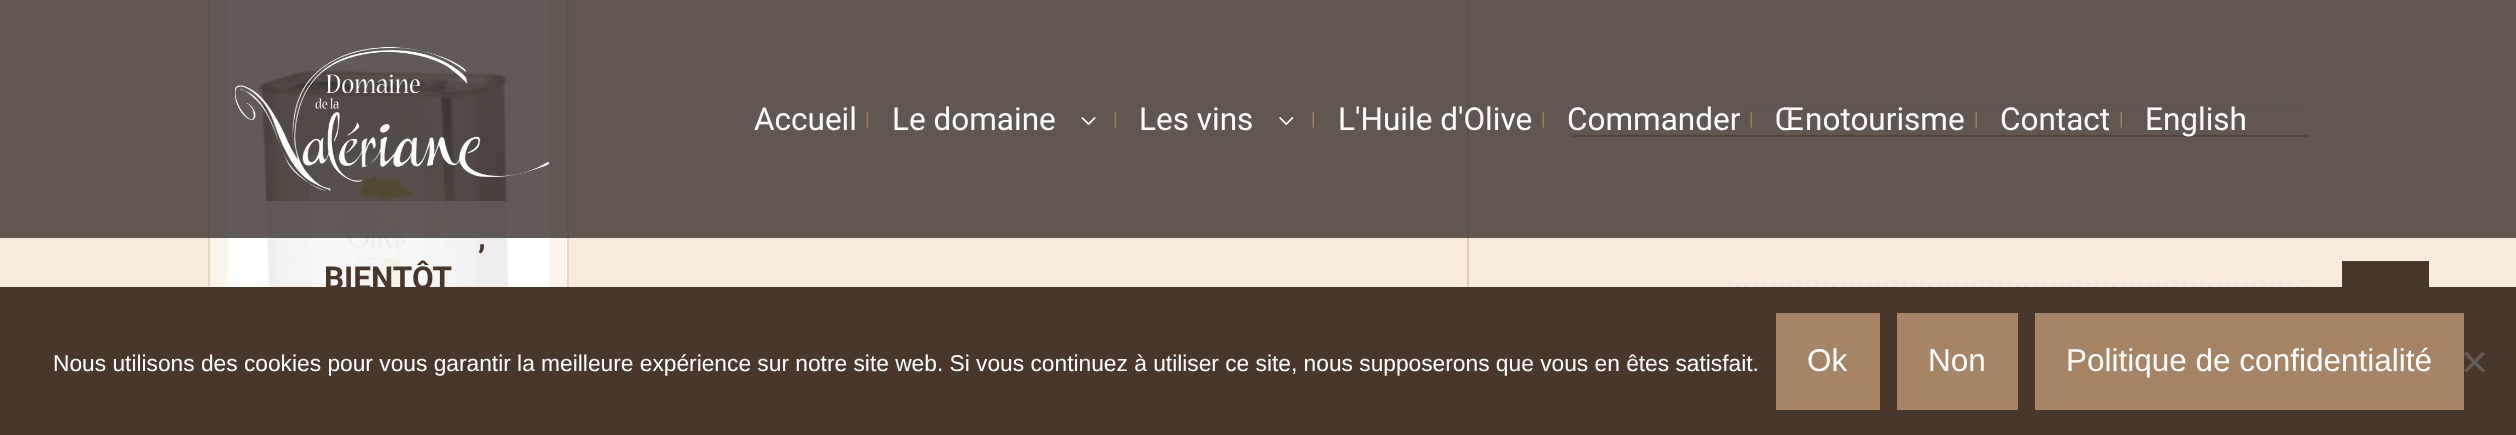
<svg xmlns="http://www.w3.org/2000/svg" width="2516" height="435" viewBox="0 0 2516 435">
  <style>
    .t1 { font: 31.5px Roboto; fill: #fff; }
    .t2 { font: 18px Roboto; fill: #a78463; }
    .t3 { font: bold 31.5px Roboto; fill: #4a372c; }
    .t4 { font: 22.75px Liberation Sans; fill: #fff; }
    .t5 { font: 31.5px Liberation Sans; fill: #fff; }
  </style>
  <rect width="100%" height="100%" fill="#f8eadd"/>
  <rect x="1467" y="0" width="2" height="287" fill="#dfcbb9"/>
  <rect x="209" y="-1" width="359" height="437" fill="none" stroke="#ead5c2" stroke-width="2"/>
  <rect x="210" y="0" width="357" height="287" fill="#fbf4ed"/>
  <image x="227" y="0" width="323" height="287" href="images/4.png"/>
  <rect x="264" y="201" width="246" height="86" fill="#ffffffe0"/>
  <rect x="1573" y="135" width="734" height="2" fill="#a78462"/>
  <image x="1744" y="102" width="563" height="9" href="images/5.png"/>
  <rect x="0" y="0" width="2516" height="238" fill="#3f3631d1"/>
  <image x="235" y="47" width="315" height="144" href="images/1.png"/>
  <text x="754" y="130" class="t1">Accueil</text>
  <text x="865" y="125" class="t2">|</text>
  <text x="892" y="130" class="t1">Le domaine</text>
  <image x="1081" y="117" width="15" height="8" href="images/2.png"/>
  <text x="1113" y="125" class="t2">|</text>
  <text x="1139" y="130" class="t1">Les vins</text>
  <image x="1279" y="117" width="15" height="8" href="images/3.png"/>
  <text x="1311" y="125" class="t2">|</text>
  <text x="1338" y="130" class="t1">L'Huile d'Olive</text>
  <text x="1541" y="125" class="t2">|</text>
  <text x="1567" y="130" class="t1">Commander</text>
  <text x="1749" y="125" class="t2">|</text>
  <text x="1775" y="130" class="t1">Œnotourisme</text>
  <text x="1974" y="125" class="t2">|</text>
  <text x="2000" y="130" class="t1">Contact</text>
  <text x="2119" y="125" class="t2">|</text>
  <text x="2145" y="130" class="t1">English</text>
  <text x="478" y="248" class="t3">,</text>
  <text x="324" y="289" class="t3">BIENTÔT</text>
  <image x="1727" y="284" width="580" height="3" href="images/6.png"/>
  <rect x="2342" y="261" width="87" height="26" fill="#4a372c"/>
  <rect x="0" y="287" width="2516" height="148" fill="#4a372c"/>
  <text x="53" y="371" class="t4">Nous utilisons des cookies pour vous garantir la meilleure expérience sur notre site web. Si vous continuez à utiliser ce site, nous supposerons que vous en êtes satisfait.</text>
  <rect x="1776" y="313" width="104" height="97" fill="#a78463"/>
  <text x="1807" y="371" class="t5">Ok</text>
  <rect x="1897" y="313" width="121" height="97" fill="#a78463"/>
  <text x="1928" y="371" class="t5">Non</text>
  <rect x="2035" y="313" width="429" height="97" fill="#a78463"/>
  <text x="2066" y="371" class="t5">Politique de confidentialité</text>
  <path d="M2482.5 351.5L2485 354L2466.5 372.5L2464 370.5Z" fill="#655c56"/>
  <path d="M2464 354L2466.5 351.5L2485 370.5L2482.5 372.5Z" fill="#655c56"/>
</svg>
